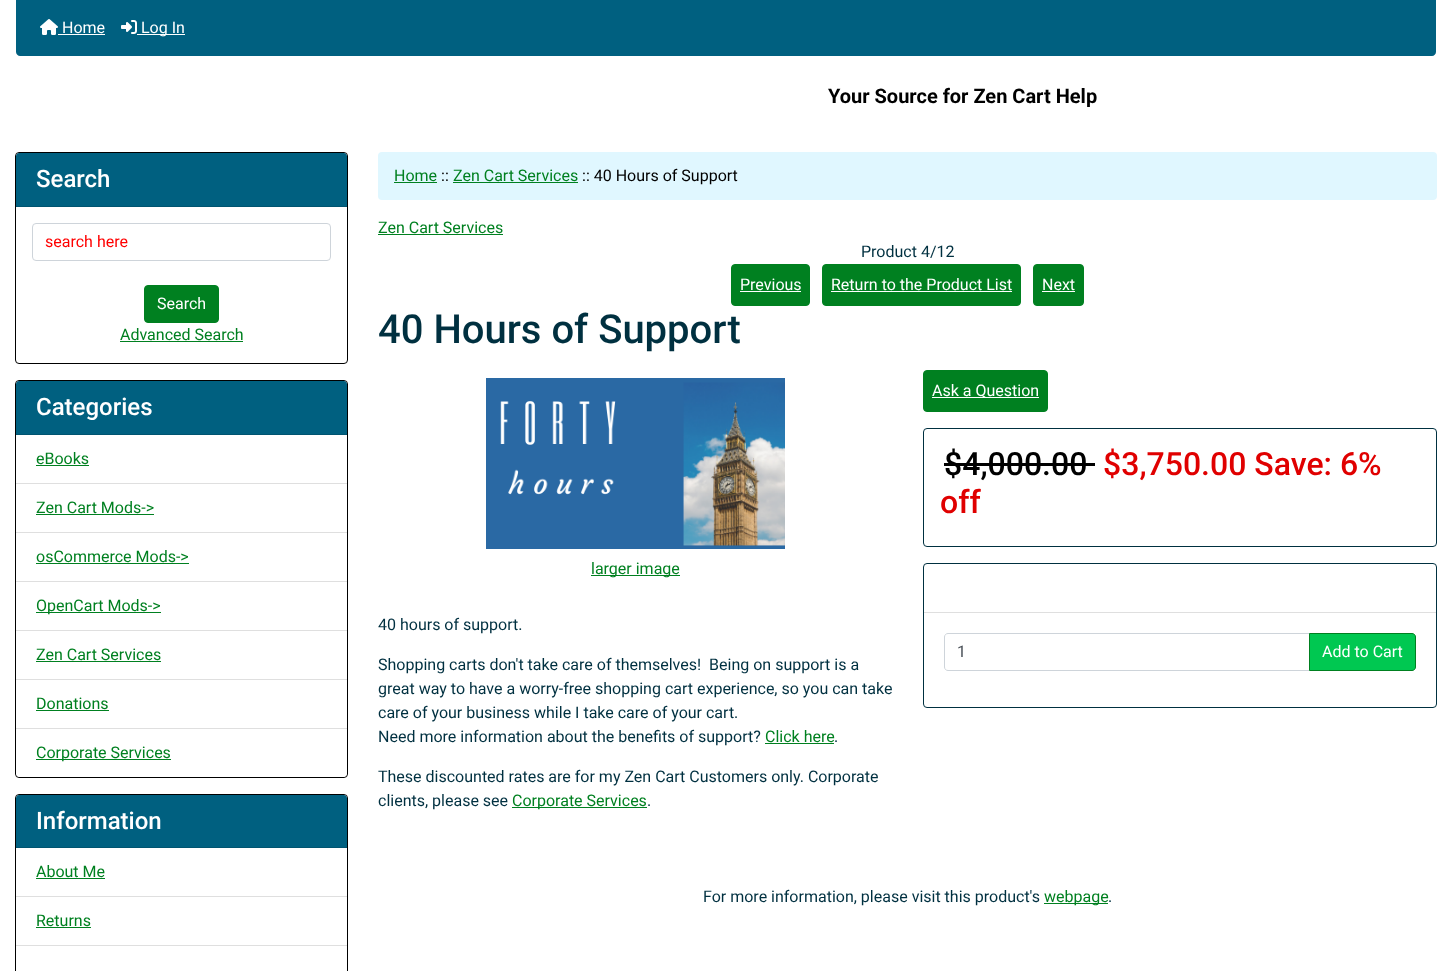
<svg xmlns="http://www.w3.org/2000/svg" width="1452" height="971" viewBox="0 0 1452 971">
  <style>
    .t1 { font: 16px Roboto; fill: #fff; }
    .t2 { font: bold 20px Roboto; fill: #000; }
    .t3 { font: 500 24px Roboto; fill: #fff; }
    .t4 { font: 16px Roboto; fill: #f00; }
    .t5 { font: 16px Roboto; fill: #008020; }
    .t6 { font: 16px Roboto; fill: #000; }
    .t7 { font: 16px Roboto; fill: #003040; }
    .t8 { font: 500 40px Roboto; fill: #003040; }
    .t9 { font: 500 32px Roboto; fill: #000; }
    .t10 { font: 500 32px Roboto; fill: #e00000; }
    .t11 { font: 16px Roboto; fill: #495057; }
  </style>
  <defs>
    <clipPath id="clip1"><rect x="16" y="381" width="331" height="396" rx="3"/></clipPath>
  </defs>
  <rect width="100%" height="100%" fill="#fff"/>
  <path d="M16 0H1436V52C1436 54 1434 56 1432 56H20C18 56 16 54 16 52Z" fill="#006080"/>
  <image x="40" y="19" width="18" height="16" href="images/1.png"/>
  <text x="62" y="33" class="t1">Home</text>
  <rect x="58" y="34" width="47" height="1" fill="#fff"/>
  <image x="121" y="20" width="16" height="14" href="images/2.png"/>
  <rect x="137" y="34" width="48" height="1" fill="#fff"/>
  <text x="141" y="33" class="t1">Log In</text>
  <text x="828" y="103" class="t2">Your Source for Zen Cart Help</text>
  <rect x="15.5" y="152.5" width="332" height="211" rx="3.5" fill="none" stroke="#000"/>
  <path d="M19 153H344C345.5 153 347 154.5 347 156V207H16V156C16 154.5 17.5 153 19 153Z" fill="#006080"/>
  <rect x="16" y="206" width="331" height="1" fill="#005470"/>
  <text x="36" y="187" class="t3">Search</text>
  <rect x="32.5" y="223.5" width="298" height="37" rx="3.5" fill="none" stroke="#ced4da"/>
  <text x="45" y="247" class="t4">search here</text>
  <rect x="144.5" y="285.5" width="74" height="37" rx="3.5" fill="#008020" stroke="#008020"/>
  <text x="157" y="309" class="t1">Search</text>
  <text x="120" y="340" class="t5">Advanced Search</text>
  <rect x="120" y="341" width="123" height="1" fill="#008020"/>
  <rect x="15.5" y="380.5" width="332" height="397" rx="3.5" fill="none" stroke="#000"/>
  <path d="M19 381H344C345.5 381 347 382.5 347 384V435H16V384C16 382.5 17.5 381 19 381Z" fill="#006080"/>
  <rect x="16" y="434" width="331" height="1" fill="#005470"/>
  <text x="36" y="415" class="t3">Categories</text>
  <rect x="16" y="483" width="331" height="1" fill="#dfdfdf"/>
  <text x="36" y="464" class="t5">eBooks</text>
  <rect x="36" y="465" width="53" height="1" fill="#008020"/>
  <rect x="16" y="532" width="331" height="1" fill="#dfdfdf"/>
  <text x="36" y="513" class="t5">Zen Cart Mods-&gt;</text>
  <rect x="36" y="514" width="118" height="1" fill="#008020"/>
  <rect x="16" y="581" width="331" height="1" fill="#dfdfdf"/>
  <text x="36" y="562" class="t5">osCommerce Mods-&gt;</text>
  <rect x="36" y="563" width="153" height="1" fill="#008020"/>
  <rect x="16" y="630" width="331" height="1" fill="#dfdfdf"/>
  <rect x="36" y="612" width="125" height="1" fill="#008020"/>
  <text x="36" y="611" class="t5">OpenCart Mods-&gt;</text>
  <rect x="16" y="679" width="331" height="1" fill="#dfdfdf"/>
  <text x="36" y="660" class="t5">Zen Cart Services</text>
  <rect x="36" y="661" width="125" height="1" fill="#008020"/>
  <rect x="16" y="728" width="331" height="1" fill="#dfdfdf"/>
  <text x="36" y="709" class="t5">Donations</text>
  <rect x="36" y="710" width="73" height="1" fill="#008020"/>
  <g clip-path="url(#clip1)">
    <path d="M16 729H347V773C347 775 345 777 343 777H20C18 777 16 775 16 773Z" fill="#fff"/>
  </g>
  <rect x="36" y="759" width="135" height="1" fill="#008020"/>
  <text x="36" y="758" class="t5">Corporate Services</text>
  <rect x="15.5" y="794.5" width="332" height="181" rx="3.5" fill="none" stroke="#000"/>
  <path d="M19 795H344C345.5 795 347 796.5 347 798V848H16V798C16 796.5 17.5 795 19 795Z" fill="#006080"/>
  <rect x="16" y="847" width="331" height="1" fill="#005470"/>
  <text x="36" y="829" class="t3">Information</text>
  <rect x="16" y="896" width="331" height="1" fill="#dfdfdf"/>
  <text x="36" y="877" class="t5">About Me</text>
  <rect x="36" y="878" width="69" height="1" fill="#008020"/>
  <rect x="16" y="945" width="331" height="1" fill="#dfdfdf"/>
  <text x="36" y="926" class="t5">Returns</text>
  <rect x="36" y="927" width="55" height="1" fill="#008020"/>
  <rect x="378" y="152" width="1059" height="48" rx="4" fill="#e0f7ff"/>
  <text x="394" y="181" class="t5">Home</text>
  <rect x="394" y="182" width="43" height="1" fill="#008020"/>
  <text x="441" y="181" class="t6">::</text>
  <text x="453" y="181" class="t5">Zen Cart Services</text>
  <rect x="453" y="182" width="125" height="1" fill="#008020"/>
  <text x="582" y="181" class="t6">:: 40 Hours of Support</text>
  <text x="378" y="233" class="t5">Zen Cart Services</text>
  <rect x="378" y="234" width="125" height="1" fill="#008020"/>
  <text x="861" y="257" class="t7">Product 4/12</text>
  <rect x="731.5" y="264.5" width="78" height="41" rx="3.5" fill="#008020" stroke="#008020"/>
  <text x="740" y="290" class="t1">Previous</text>
  <rect x="740" y="291" width="61" height="1" fill="#fff"/>
  <rect x="822.5" y="264.5" width="198" height="41" rx="3.5" fill="#008020" stroke="#008020"/>
  <text x="831" y="290" class="t1">Return to the Product List</text>
  <rect x="831" y="291" width="181" height="1" fill="#fff"/>
  <rect x="1033.5" y="264.5" width="50" height="41" rx="3.5" fill="#008020" stroke="#008020"/>
  <text x="1042" y="290" class="t1">Next</text>
  <rect x="1042" y="291" width="33" height="1" fill="#fff"/>
  <text x="378" y="343" class="t8">40 Hours of Support</text>
  <rect x="923.5" y="370.5" width="124" height="41" rx="3.5" fill="#008020" stroke="#008020"/>
  <rect x="932" y="397" width="107" height="1" fill="#fff"/>
  <text x="932" y="396" class="t1">Ask a Question</text>
  <rect x="923.5" y="428.5" width="513" height="118" rx="3.5" fill="none" stroke="#003040"/>
  <text x="944" y="475" class="t9">$4,000.00</text>
  <rect x="944" y="463" width="151" height="3" fill="#000"/>
  <text x="1103" y="475" class="t10">$3,750.00 Save: 6%</text>
  <text x="940" y="513" class="t10">off</text>
  <rect x="923.5" y="563.5" width="513" height="144" rx="3.5" fill="none" stroke="#003040"/>
  <rect x="924" y="612" width="512" height="1" fill="#dfdfdf"/>
  <path d="M948 633.5H1309.5V670.5H948C946 670.5 944.5 669 944.5 667V637C944.5 635 946 633.5 948 633.5Z" fill="none" stroke="#ced4da"/>
  <text x="957" y="657" class="t11">1</text>
  <path d="M1309.5 633.5H1412C1414 633.5 1415.5 635 1415.5 637V667C1415.5 669 1414 670.5 1412 670.5H1309.5Z" fill="#00c851" stroke="#008020"/>
  <text x="1322" y="657" class="t1">Add to Cart</text>
  <image x="486" y="378" width="299" height="171" href="images/3.png"/>
  <rect x="591" y="575" width="89" height="1" fill="#008020"/>
  <text x="591" y="574" class="t5">larger image</text>
  <text x="378" y="630" class="t7">40 hours of support.</text>
  <text x="378" y="670" class="t7" xml:space="preserve">Shopping carts don't take care of themselves!  Being on support is a</text>
  <text x="378" y="694" class="t7">great way to have a worry-free shopping cart experience, so you can take</text>
  <text x="378" y="718" class="t7">care of your business while I take care of your cart.</text>
  <text x="378" y="742" class="t7">Need more information about the benefits of support?</text>
  <text x="765" y="742" class="t5">Click here</text>
  <rect x="765" y="743" width="69" height="1" fill="#008020"/>
  <text x="834" y="742" class="t7">.</text>
  <text x="378" y="782" class="t7">These discounted rates are for my Zen Cart Customers only. Corporate</text>
  <text x="378" y="806" class="t7">clients, please see</text>
  <rect x="512" y="807" width="135" height="1" fill="#008020"/>
  <text x="512" y="806" class="t5">Corporate Services</text>
  <text x="647" y="806" class="t7">.</text>
  <text x="703" y="902" class="t7">For more information, please visit this product's</text>
  <rect x="1044" y="903" width="64" height="1" fill="#008020"/>
  <text x="1044" y="902" class="t5">webpage</text>
  <text x="1108" y="902" class="t7">.</text>
</svg>
